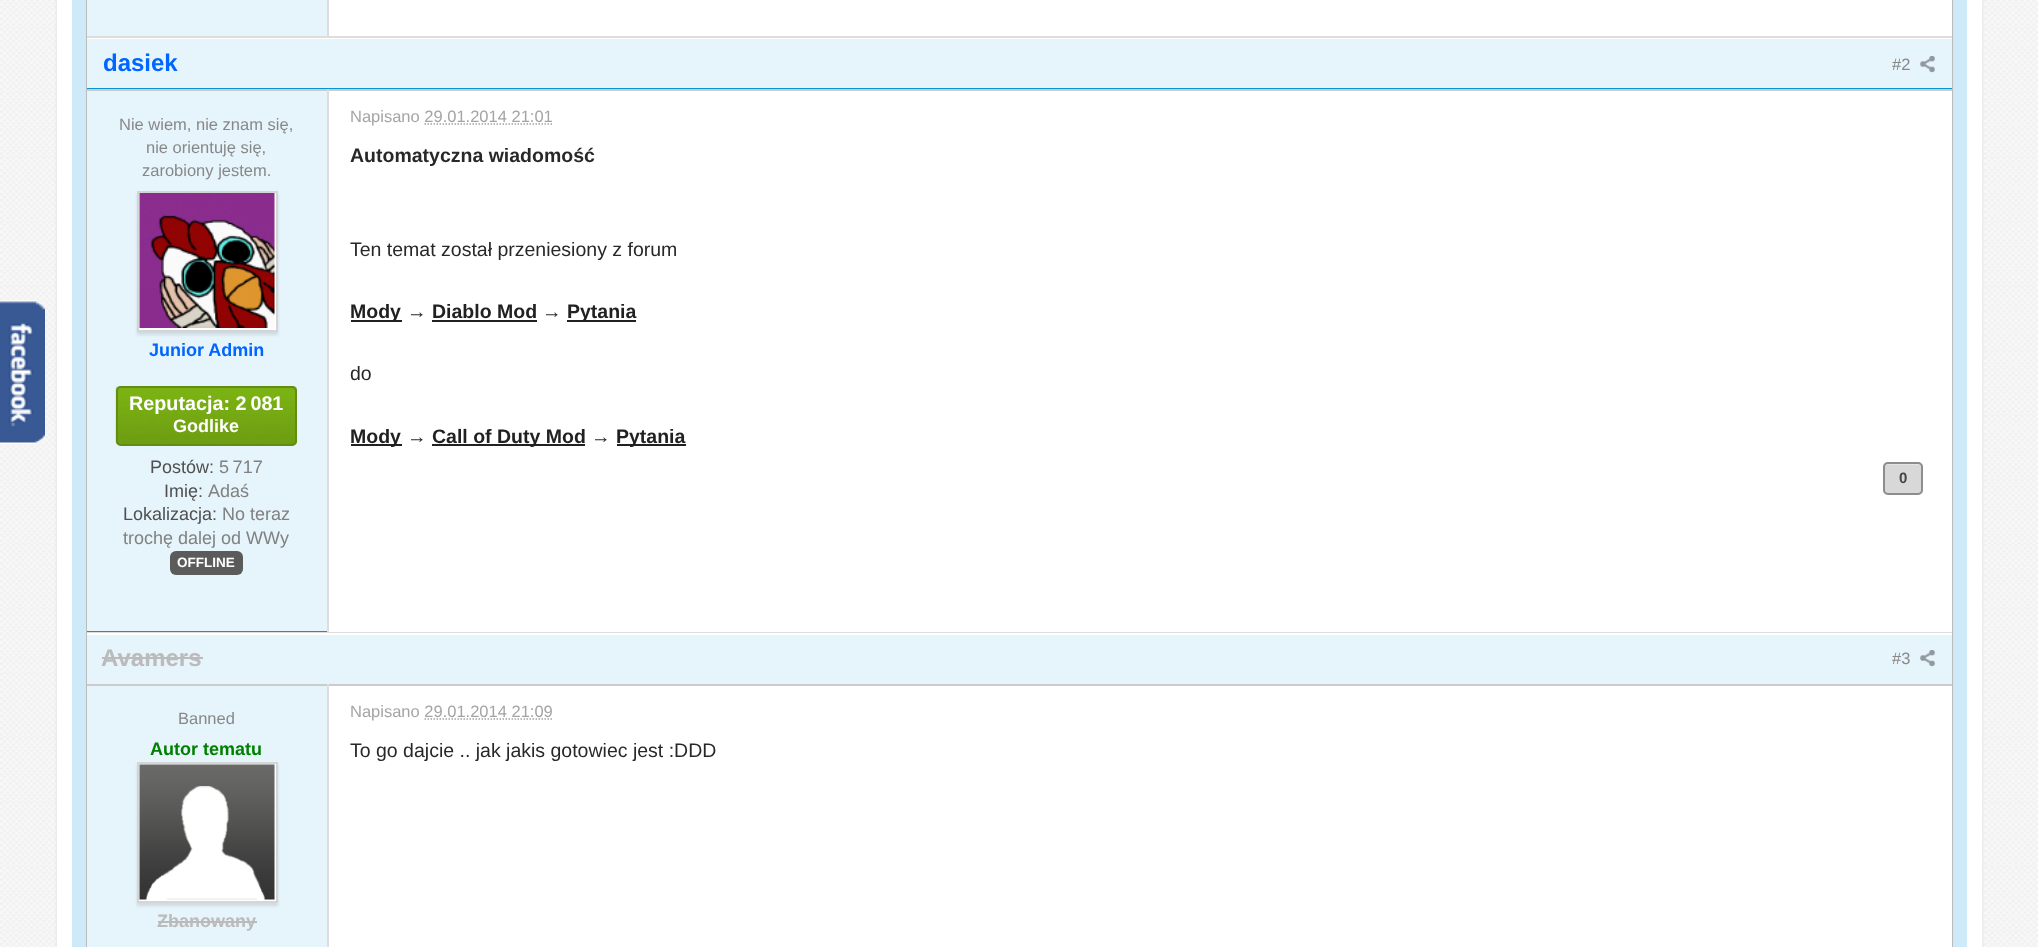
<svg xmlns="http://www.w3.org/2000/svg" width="2038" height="947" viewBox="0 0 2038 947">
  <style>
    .t1 { font: bold 24px Liberation Sans; fill: #06f; }
    .t2 { font: 16.5px Liberation Sans; fill: #888; }
    .t3 { font: bold 18px Liberation Sans; fill: #06f; }
    .t4 { font: bold 19.75px Liberation Sans; fill: #fff; }
    .t5 { font: bold 18px Liberation Sans; fill: #fff; }
    .t6 { font: 18px Liberation Sans; fill: #505050; }
    .t7 { font: 18px Liberation Sans; fill: #818181; }
    .t8 { font: bold 13.5px Liberation Sans; fill: #fff; }
    .t9 { font: 16.5px Liberation Sans; fill: #a4a4a4; }
    .t10 { font: bold 19.5px Liberation Sans; fill: #282828; }
    .t11 { font: 19.5px Liberation Sans; fill: #282828; }
    .t12 { font: bold 19.5px Liberation Sans; fill: #212121; }
    .t13 { font: bold 15px Liberation Sans; fill: #444; }
    .t14 { font: bold 24px Liberation Sans; fill: #bbb; }
    .t15 { font: bold 18px Liberation Sans; fill: #008000; }
    .t16 { font: bold 18px Liberation Sans; fill: #bbb; }
  </style>
  <rect width="100%" height="100%" fill="#fff"/>
  <image x="0" y="0" width="2038" height="947" href="images/1.png"/>
  <image x="0" y="300" width="45" height="144" href="images/2.png"/>
  <rect x="57" y="-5" width="1925" height="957" fill="#dbdbdb" filter="blur(1.5px)"/>
  <rect x="57" y="0" width="1925" height="947" fill="#fff"/>
  <rect x="72" y="0" width="1895" height="947" fill="#cee9f7"/>
  <rect x="87" y="-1" width="1865" height="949" fill="none" stroke="#bbb" stroke-width="2"/>
  <rect x="87" y="36" width="1865" height="2" fill="#ddd"/>
  <rect x="87" y="0" width="240" height="36" fill="#e6f4fb"/>
  <rect x="329" y="0" width="1623" height="36" fill="#fff"/>
  <rect x="327" y="0" width="2" height="36" fill="#ddd"/>
  <rect x="87" y="38" width="1865" height="1" fill="#fff"/>
  <rect x="87" y="632" width="1865" height="1" fill="#ddd"/>
  <rect x="87" y="631" width="240" height="1" fill="#0895d6"/>
  <rect x="87" y="91" width="240" height="540" fill="#e6f4fb"/>
  <rect x="87" y="88" width="1865" height="1" fill="#0895d6"/>
  <rect x="87" y="39" width="1865" height="49" fill="#e6f4fb"/>
  <text x="103" y="71" class="t1">dasiek</text>
  <text x="1892" y="70" class="t2">#2</text>
  <image x="1920" y="56" width="15" height="17" href="images/3.png"/>
  <text x="119" y="130" class="t2">Nie wiem, nie znam się,</text>
  <text x="146" y="153" class="t2">nie orientuję się,</text>
  <text x="142" y="176" class="t2">zarobiony jestem.</text>
  <rect x="137" y="194" width="141" height="141" fill="#0000001a" filter="blur(1.5px)"/>
  <rect x="138" y="192" width="139" height="139" fill="#fff" stroke="#d5d5d5" stroke-width="2"/>
  <image x="139" y="193" width="136" height="135" href="images/4.png"/>
  <text x="149" y="356" class="t3">Junior Admin</text>
  <rect x="116" y="386" width="181" height="60" rx="5" fill="#95d913"/>
  <image x="115" y="386" width="182" height="59" href="images/5.png"/>
  <rect x="117" y="387" width="179" height="58" rx="4" fill="none" stroke="#638c13" stroke-width="2"/>
  <text x="129" y="410" class="t4">Reputacja: 2 081</text>
  <text x="173" y="432" class="t5">Godlike</text>
  <text x="150" y="473" class="t6">Postów:</text>
  <text x="219" y="473" class="t7">5 717</text>
  <text x="164" y="497" class="t6">Imię:</text>
  <text x="208" y="497" class="t7">Adaś</text>
  <text x="123" y="520" class="t6">Lokalizacja:</text>
  <text x="222" y="520" class="t7">No teraz</text>
  <text x="123" y="544" class="t7">trochę dalej od WWy</text>
  <rect x="170" y="551" width="73" height="24" rx="6" fill="#5b5b5b"/>
  <text x="177" y="567" class="t8">OFFLINE</text>
  <rect x="329" y="91" width="1623" height="541" fill="#fff"/>
  <rect x="87" y="89" width="1865" height="2" fill="#ccc"/>
  <rect x="327" y="89" width="2" height="543" fill="#ddd"/>
  <text x="350" y="122" class="t9">Napisano 29.01.2014 21:01</text>
  <path d="M424.5 124H553" fill="none" stroke="#a4a4a4" stroke-width="1.5" stroke-dasharray="1.5 1.5"/>
  <text x="350" y="162" class="t10">Automatyczna wiadomość</text>
  <text x="350" y="256" class="t11">Ten temat został przeniesiony z forum</text>
  <rect x="351" y="320" width="51" height="2" fill="#212121"/>
  <text x="350" y="318" class="t12">Mody</text>
  <text x="407" y="318" class="t10">→</text>
  <text x="432" y="318" class="t12">Diablo Mod</text>
  <rect x="432" y="320" width="105" height="2" fill="#212121"/>
  <text x="542" y="318" class="t10">→</text>
  <rect x="567" y="320" width="69" height="2" fill="#212121"/>
  <text x="567" y="318" class="t12">Pytania</text>
  <text x="350" y="380" class="t11">do</text>
  <rect x="351" y="444" width="51" height="2" fill="#212121"/>
  <text x="350" y="443" class="t12">Mody</text>
  <text x="407" y="443" class="t10">→</text>
  <rect x="432" y="444" width="153" height="2" fill="#212121"/>
  <text x="432" y="443" class="t12">Call of Duty Mod</text>
  <text x="591" y="443" class="t10">→</text>
  <rect x="617" y="444" width="69" height="2" fill="#212121"/>
  <text x="616" y="443" class="t12">Pytania</text>
  <rect x="1883" y="462" width="40" height="33" rx="5" fill="#d8d8d8"/>
  <path d="M1887 465H1918C1920 465 1922 466 1922 468C1922 463 1918 464 1913.5 464H1892.5C1888 464 1884 463 1884 468C1884 466 1885 465 1887 465Z" fill="#e4e4e4"/>
  <rect x="1884" y="463" width="38" height="31" rx="4" fill="none" stroke="#8d8d8d" stroke-width="2"/>
  <text x="1899" y="483" class="t13">0</text>
  <rect x="87" y="633" width="1865" height="2" fill="#fff"/>
  <rect x="87" y="686" width="240" height="261" fill="#e6f4fb"/>
  <rect x="87" y="635" width="1865" height="49" fill="#e6f4fb"/>
  <text x="101" y="666" class="t14">Avamers</text>
  <rect x="102" y="657" width="101" height="2" fill="#bbb"/>
  <text x="1892" y="664" class="t2">#3</text>
  <image x="1920" y="650" width="15" height="17" href="images/3.png"/>
  <text x="178" y="724" class="t2">Banned</text>
  <text x="150" y="755" class="t15">Autor tematu</text>
  <rect x="137" y="765" width="141" height="141" fill="#0000001a" filter="blur(1.5px)"/>
  <rect x="138" y="763" width="139" height="139" fill="#fff" stroke="#d5d5d5" stroke-width="2"/>
  <image x="139" y="764" width="136" height="136" href="images/6.png"/>
  <text x="157" y="927" class="t16">Zbanowany</text>
  <rect x="158" y="921" width="99" height="2" fill="#bbb"/>
  <rect x="329" y="686" width="1623" height="261" fill="#fff"/>
  <rect x="87" y="684" width="1865" height="2" fill="#ccc"/>
  <rect x="327" y="684" width="2" height="263" fill="#ddd"/>
  <text x="350" y="717" class="t9">Napisano 29.01.2014 21:09</text>
  <path d="M424.5 719H553" fill="none" stroke="#a4a4a4" stroke-width="1.5" stroke-dasharray="1.5 1.5"/>
  <text x="350" y="757" class="t11">To go dajcie .. jak jakis gotowiec jest :DDD</text>
</svg>
